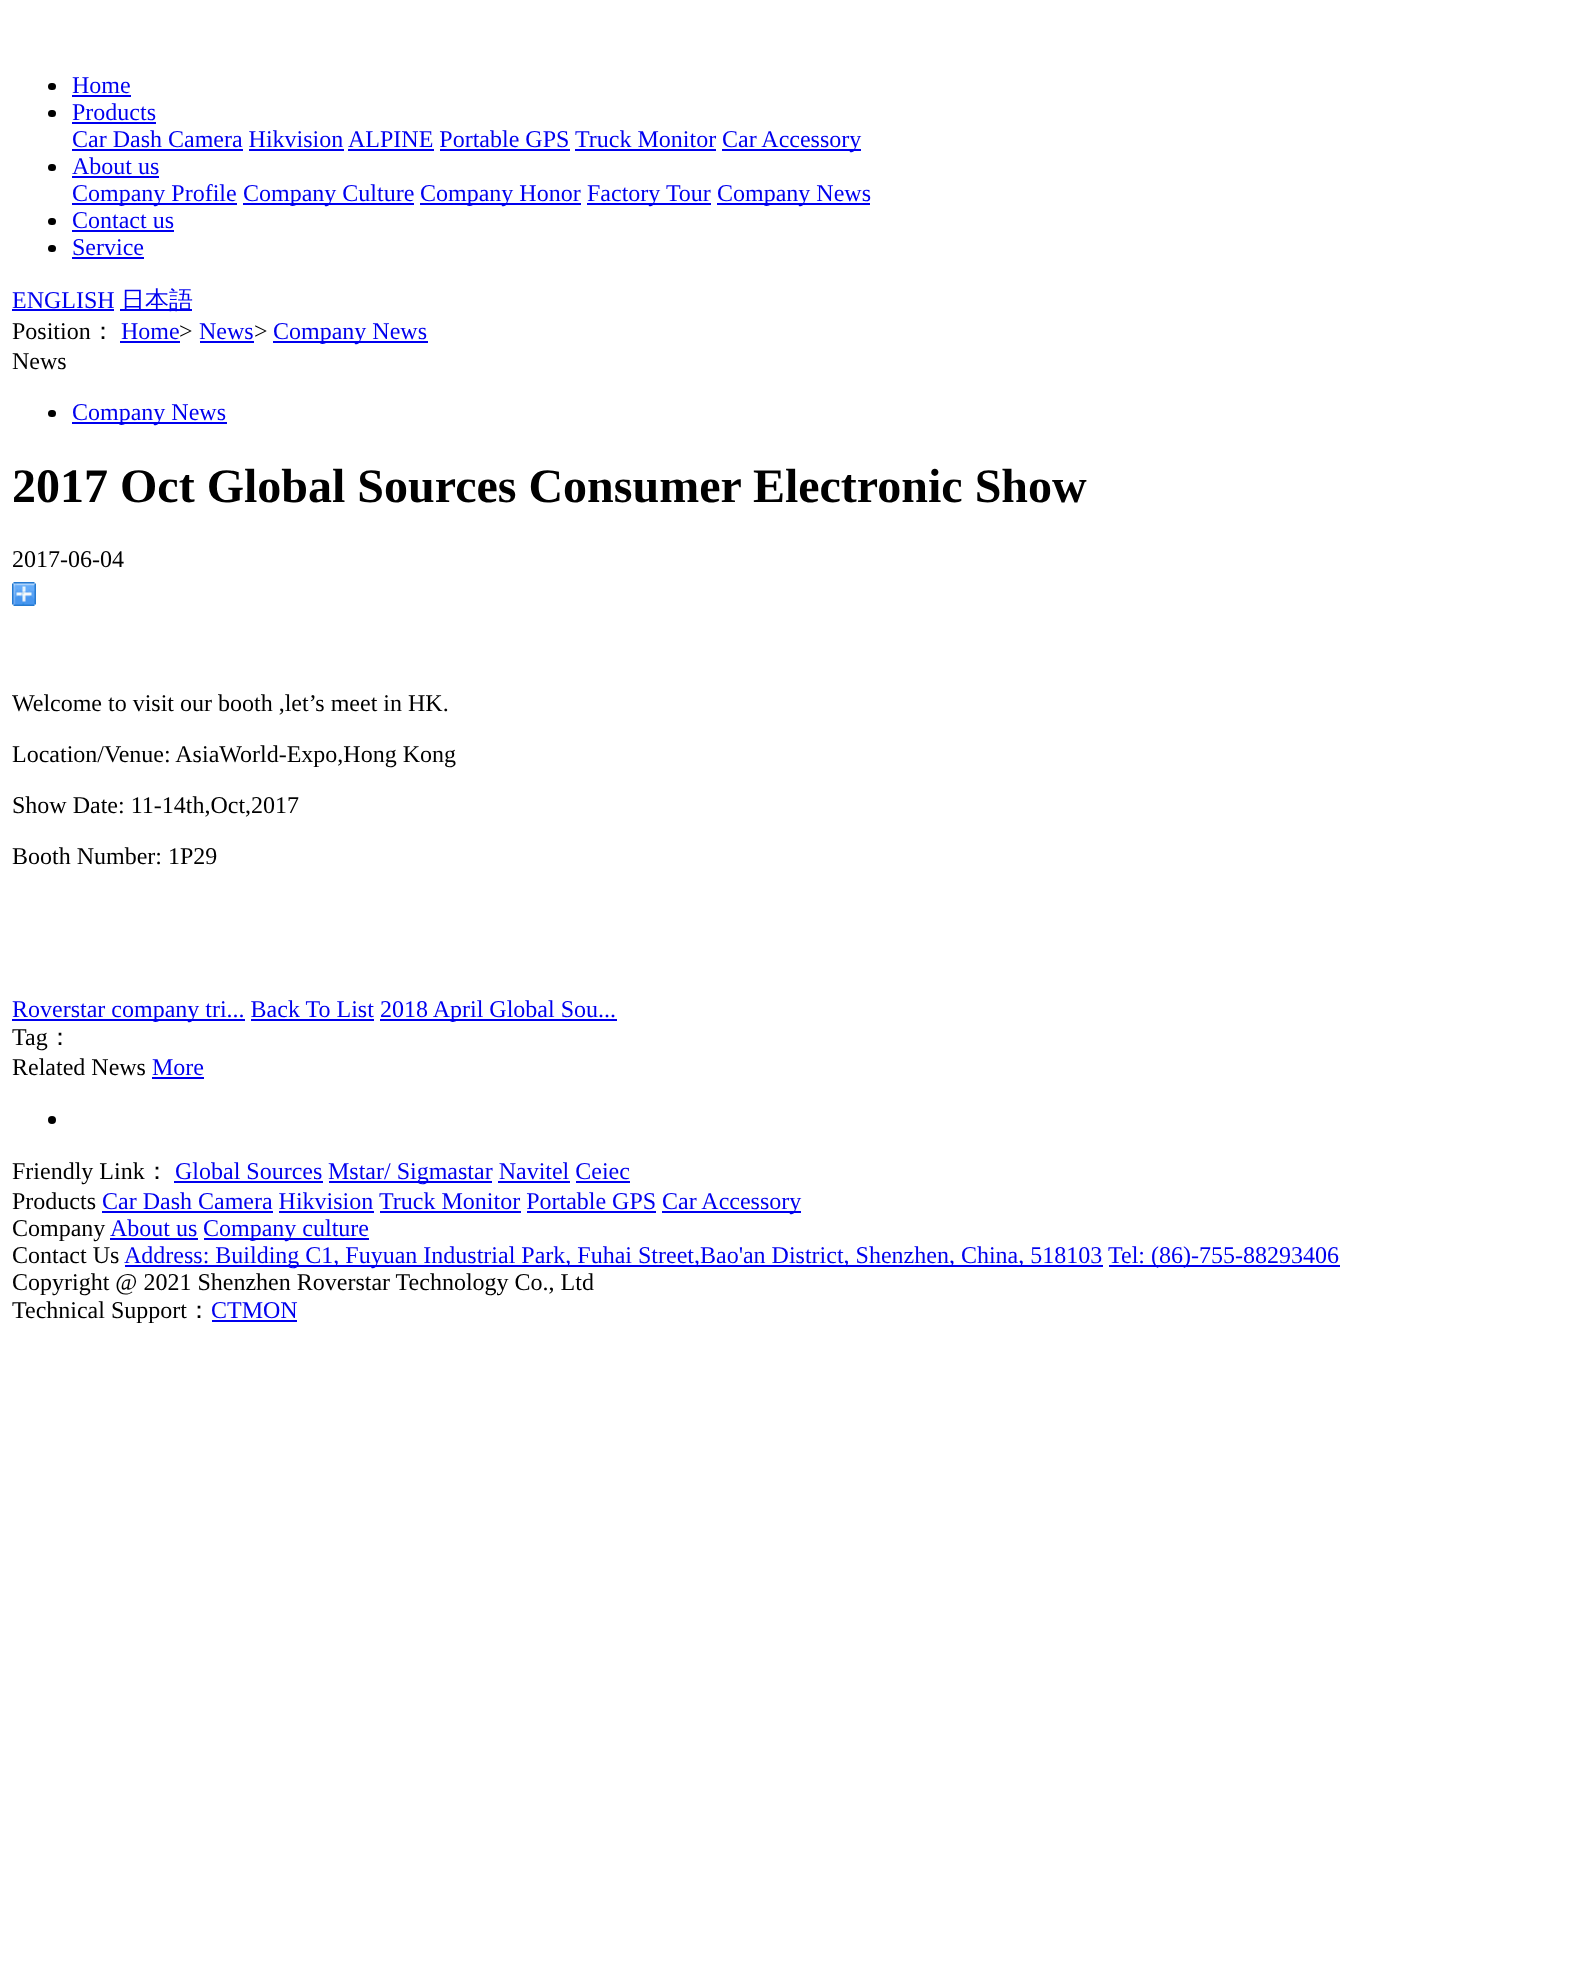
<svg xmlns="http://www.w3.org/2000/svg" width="1596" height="1961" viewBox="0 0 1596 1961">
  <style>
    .t1 { font: 24px Liberation Serif; fill: #00e; }
    .t2 { font: 500 24px WenQuanYi Zen Hei; fill: #00e; }
    .t3 { font: 24px Liberation Serif; fill: #000; }
    .t4 { font: 500 24px WenQuanYi Zen Hei; fill: #000; }
    .t5 { font: bold 48px Liberation Serif; fill: #000; }
  </style>
  <rect width="100%" height="100%" fill="#fff"/>
  <rect x="48" y="83" width="8" height="7" rx="3.5" fill="#000"/>
  <text x="72" y="93" class="t1">Home</text>
  <rect x="72" y="95" width="59" height="2" fill="#00e"/>
  <rect x="48" y="110" width="8" height="7" rx="3.5" fill="#000"/>
  <text x="72" y="120" class="t1">Products</text>
  <rect x="72" y="122" width="84" height="2" fill="#00e"/>
  <text x="72" y="147" class="t1">Car Dash Camera Hikvision</text>
  <rect x="72" y="149" width="171" height="2" fill="#00e"/>
  <text x="348" y="147" class="t1">ALPINE Portable GPS</text>
  <rect x="348" y="149" width="86" height="2" fill="#00e"/>
  <text x="575" y="147" class="t1">Truck Monitor</text>
  <rect x="575" y="149" width="141" height="2" fill="#00e"/>
  <rect x="722" y="149" width="139" height="2" fill="#00e"/>
  <text x="722" y="147" class="t1">Car Accessory</text>
  <rect x="249" y="149" width="95" height="2" fill="#00e"/>
  <rect x="440" y="149" width="130" height="2" fill="#00e"/>
  <rect x="48" y="164" width="8" height="7" rx="3.5" fill="#000"/>
  <text x="72" y="174" class="t1">About us</text>
  <rect x="72" y="176" width="87" height="2" fill="#00e"/>
  <rect x="72" y="203" width="165" height="2" fill="#00e"/>
  <text x="72" y="201" class="t1">Company Profile</text>
  <rect x="243" y="203" width="171" height="2" fill="#00e"/>
  <text x="243" y="201" class="t1">Company Culture</text>
  <rect x="420" y="203" width="161" height="2" fill="#00e"/>
  <text x="420" y="201" class="t1">Company Honor</text>
  <rect x="587" y="203" width="124" height="2" fill="#00e"/>
  <text x="587" y="201" class="t1">Factory Tour</text>
  <rect x="717" y="203" width="153" height="2" fill="#00e"/>
  <text x="717" y="201" class="t1">Company News</text>
  <rect x="48" y="218" width="8" height="7" rx="3.5" fill="#000"/>
  <text x="72" y="228" class="t1">Contact us</text>
  <rect x="72" y="230" width="102" height="2" fill="#00e"/>
  <rect x="48" y="245" width="8" height="7" rx="3.5" fill="#000"/>
  <text x="72" y="255" class="t1">Service</text>
  <rect x="72" y="257" width="72" height="2" fill="#00e"/>
  <text x="12" y="308" class="t1">ENGLISH</text>
  <rect x="12" y="309" width="102" height="2" fill="#00e"/>
  <rect x="120" y="309" width="72" height="2" fill="#00e"/>
  <text x="121" y="308" class="t2">日本語</text>
  <text x="12" y="339" class="t3">Position</text>
  <text x="91" y="339" class="t4">：</text>
  <text x="121" y="339" class="t1">Home</text>
  <rect x="120" y="341" width="60" height="2" fill="#00e"/>
  <text x="179" y="339" class="t3">&gt;</text>
  <text x="199" y="339" class="t1">News</text>
  <rect x="200" y="341" width="54" height="2" fill="#00e"/>
  <text x="254" y="339" class="t3">&gt;</text>
  <rect x="273" y="341" width="155" height="2" fill="#00e"/>
  <text x="273" y="339" class="t1">Company News</text>
  <text x="12" y="369" class="t3">News</text>
  <rect x="48" y="410" width="8" height="7" rx="3.5" fill="#000"/>
  <rect x="72" y="422" width="155" height="2" fill="#00e"/>
  <text x="72" y="420" class="t1">Company News</text>
  <text x="12" y="502" class="t5">2017 Oct Global Sources Consumer Electronic Show</text>
  <text x="12" y="567" class="t3">2017-06-04</text>
  <image x="12" y="582" width="24" height="24" href="images/1.png"/>
  <text x="12" y="711" class="t3">Welcome to visit our booth ,let’s meet in HK.</text>
  <text x="12" y="762" class="t3">Location/Venue: AsiaWorld-Expo,Hong Kong</text>
  <text x="12" y="813" class="t3">Show Date: 11-14th,Oct,2017</text>
  <text x="12" y="864" class="t3">Booth Number: 1P29</text>
  <rect x="12" y="1019" width="233" height="2" fill="#00e"/>
  <text x="12" y="1017" class="t1">Roverstar company tri... Back To List</text>
  <rect x="380" y="1019" width="237" height="2" fill="#00e"/>
  <text x="380" y="1017" class="t1">2018 April Global Sou...</text>
  <rect x="251" y="1019" width="123" height="2" fill="#00e"/>
  <text x="12" y="1045" class="t3">Tag</text>
  <text x="48" y="1045" class="t4">：</text>
  <text x="12" y="1075" class="t3">Related News</text>
  <text x="152" y="1075" class="t1">More</text>
  <rect x="152" y="1077" width="52" height="2" fill="#00e"/>
  <circle cx="52" cy="1120" r="4" fill="#000"/>
  <text x="12" y="1179" class="t3">Friendly Link</text>
  <text x="145" y="1179" class="t4">：</text>
  <text x="175" y="1179" class="t1">Global Sources</text>
  <rect x="174" y="1181" width="149" height="2" fill="#00e"/>
  <rect x="329" y="1181" width="163" height="2" fill="#00e"/>
  <text x="328" y="1179" class="t1">Mstar/ Sigmastar Navitel Ceiec</text>
  <rect x="498" y="1181" width="72" height="2" fill="#00e"/>
  <rect x="576" y="1181" width="54" height="2" fill="#00e"/>
  <text x="12" y="1209" class="t3">Products</text>
  <text x="102" y="1209" class="t1">Car Dash Camera Hikvision</text>
  <rect x="102" y="1211" width="171" height="2" fill="#00e"/>
  <text x="379" y="1209" class="t1">Truck Monitor Portable GPS</text>
  <rect x="380" y="1211" width="141" height="2" fill="#00e"/>
  <rect x="662" y="1211" width="139" height="2" fill="#00e"/>
  <text x="662" y="1209" class="t1">Car Accessory</text>
  <rect x="279" y="1211" width="95" height="2" fill="#00e"/>
  <rect x="527" y="1211" width="129" height="2" fill="#00e"/>
  <text x="12" y="1236" class="t3">Company</text>
  <text x="110" y="1236" class="t1">About us</text>
  <rect x="110" y="1238" width="88" height="2" fill="#00e"/>
  <rect x="204" y="1238" width="165" height="2" fill="#00e"/>
  <text x="203" y="1236" class="t1">Company culture</text>
  <text x="12" y="1263" class="t3">Contact Us</text>
  <rect x="125" y="1265" width="978" height="2" fill="#00e"/>
  <text x="124" y="1263" class="t1">Address: Building C1, Fuyuan Industrial Park, Fuhai Street,Bao'an District, Shenzhen, China, 518103</text>
  <rect x="1109" y="1265" width="231" height="2" fill="#00e"/>
  <text x="1108" y="1263" class="t1">Tel: (86)-755-88293406</text>
  <text x="12" y="1290" class="t3">Copyright @ 2021 Shenzhen Roverstar Technology Co., Ltd</text>
  <text x="12" y="1318" class="t3">Technical Support</text>
  <text x="187" y="1318" class="t4">：</text>
  <text x="211" y="1318" class="t1">CTMON</text>
  <rect x="212" y="1320" width="85" height="2" fill="#00e"/>
</svg>
